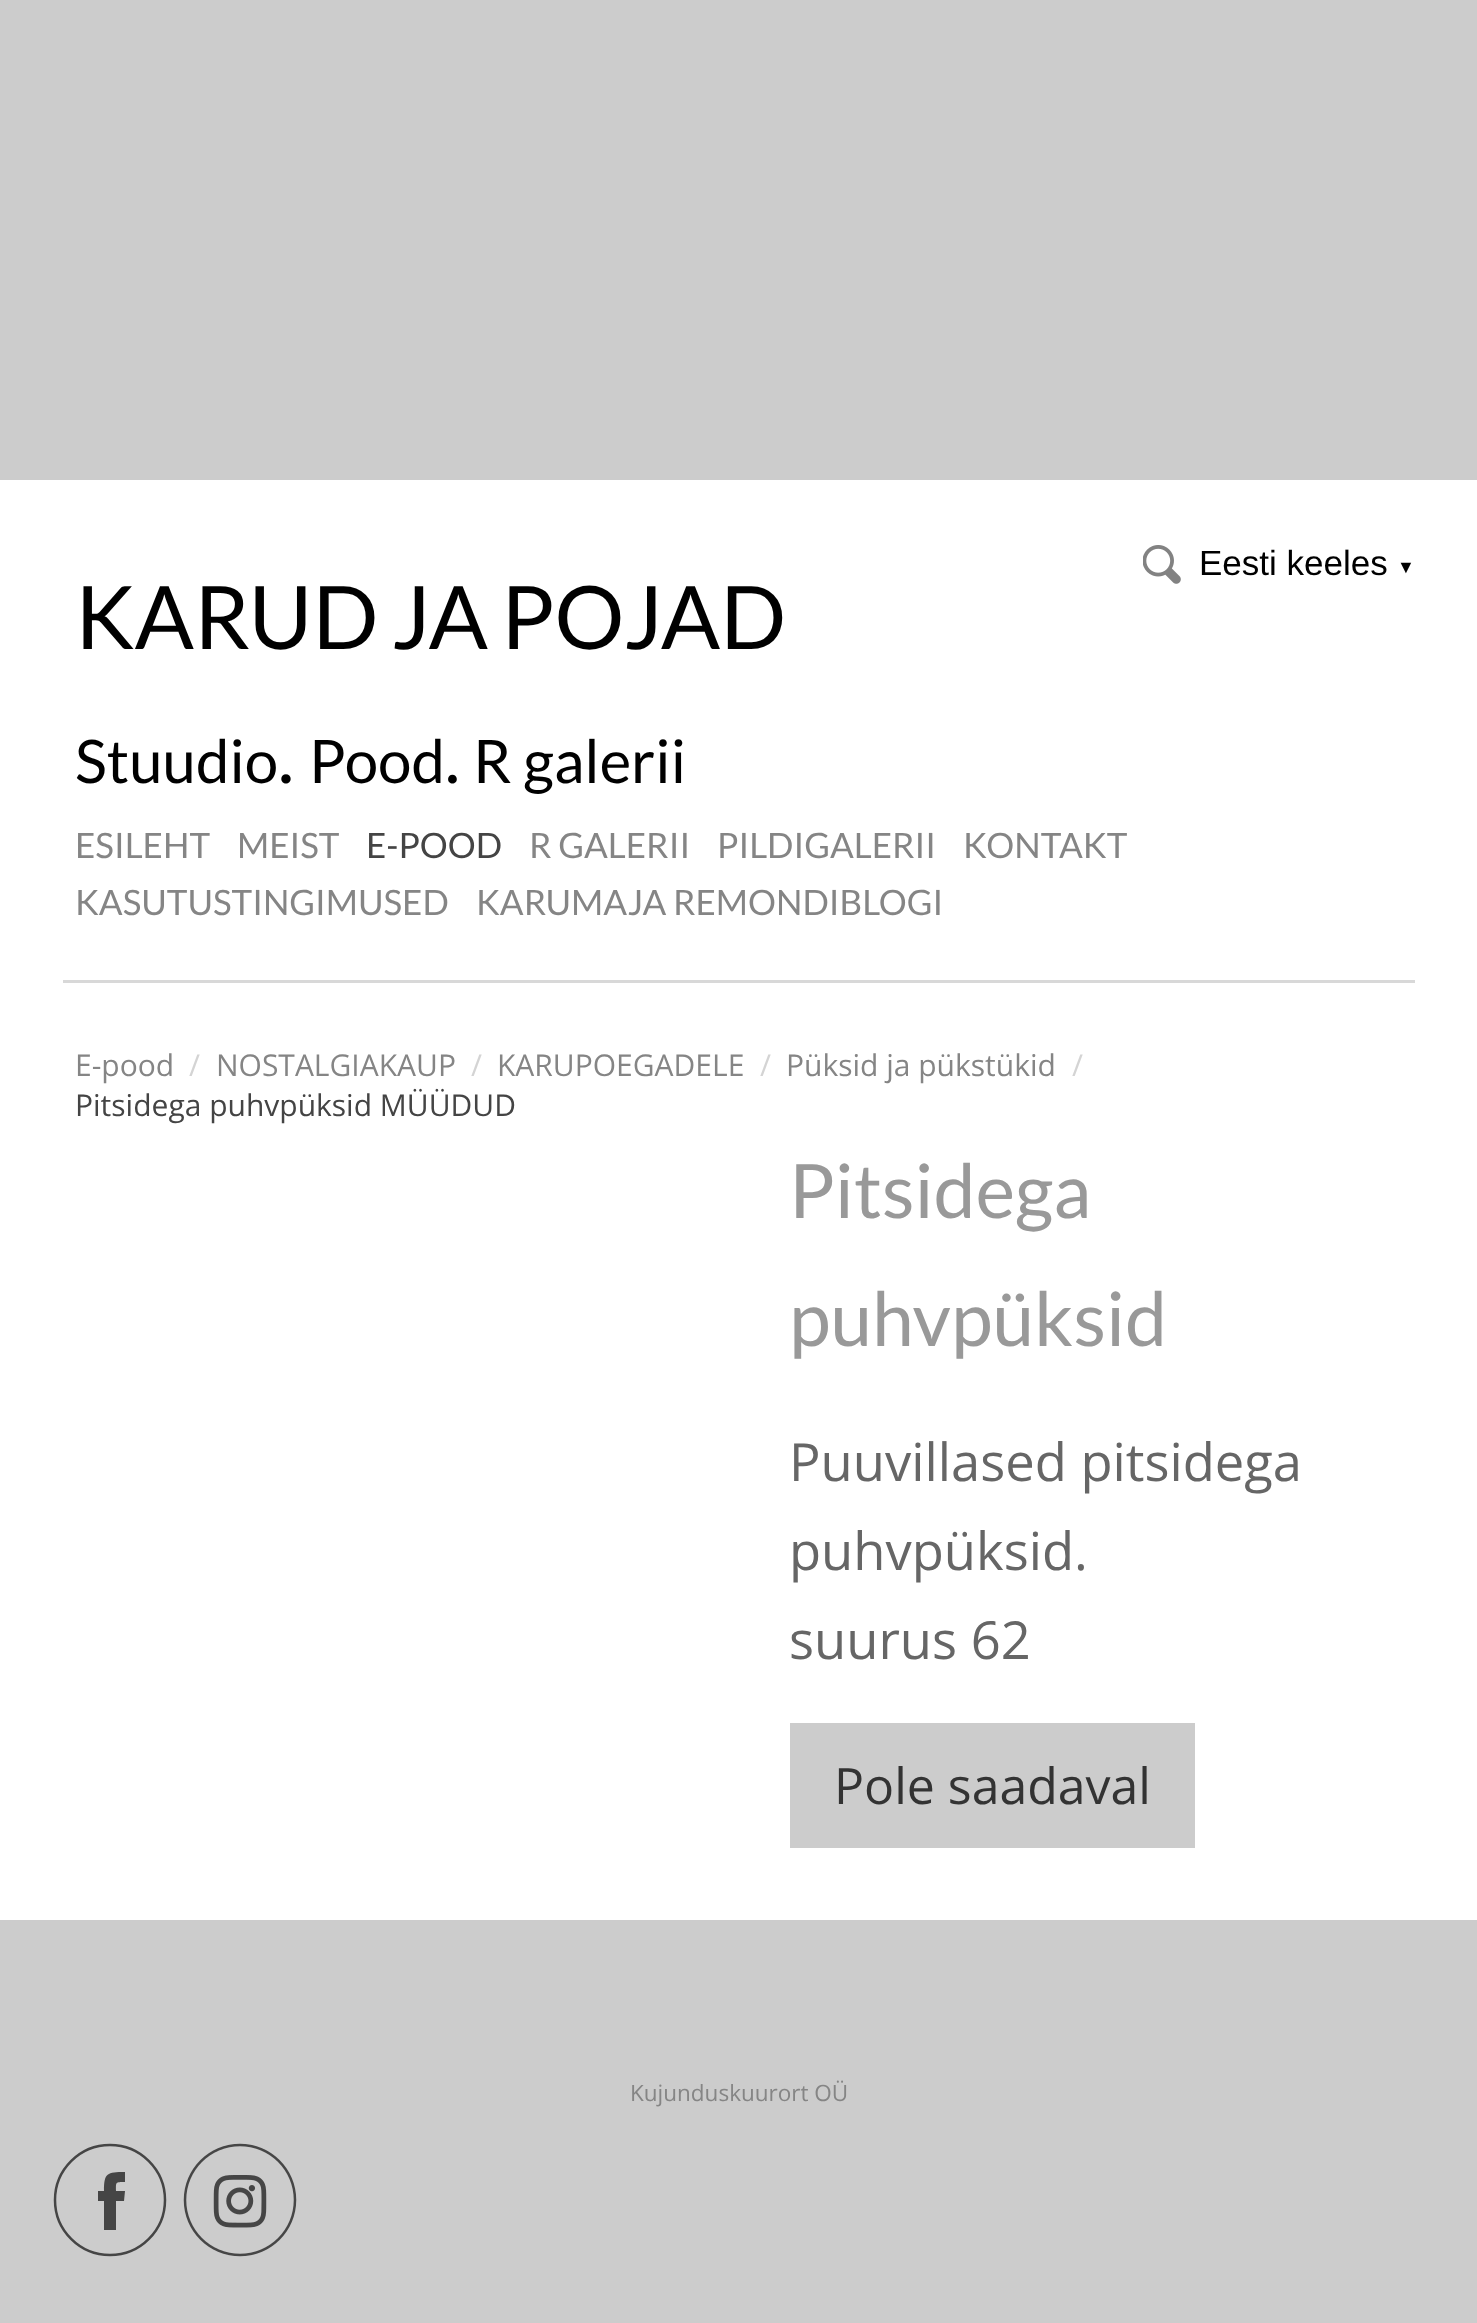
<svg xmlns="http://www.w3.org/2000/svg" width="1477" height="2323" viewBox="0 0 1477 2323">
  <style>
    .t1 { font: 35px Liberation Sans; fill: #000; }
    .t2 { font: 18px Liberation Sans; fill: #000; }
    .t3 { font: 87.5px Lato; fill: #000; }
    .t4 { font: 60px Lato; fill: #000; }
    .t5 { font: 75px Lato; fill: #000; }
    .t6 { font: 70px Lato; fill: #000; }
    .t7 { font: 35px Lato; fill: #858585; }
    .t8 { font: 35px Lato; fill: #444; }
    .t9 { font: 30px Open Sans; fill: #858585; }
    .t10 { font: 30px Open Sans; fill: #d4d4d4; }
    .t11 { font: 30px Open Sans; fill: #444; }
    .t12 { font: 75px Lato; fill: #999; }
    .t13 { font: 52.5px Open Sans; fill: #666; }
    .t14 { font: 50px Open Sans; fill: #333; }
    .t15 { font: 22.5px Open Sans; fill: #858585; }
  </style>
  <rect width="100%" height="100%" fill="#ccc"/>
  <rect x="0" y="480" width="1477" height="1440" fill="#fff"/>
  <rect x="63" y="980" width="1352" height="3" fill="#d8d8d8"/>
  <image x="1143" y="545" width="38" height="39" href="images/1.png"/>
  <text x="1199" y="575" class="t1">Eesti keeles</text>
  <text x="1397" y="573" class="t2">▼</text>
  <text x="75" y="649" class="t3">KARUD</text>
  <text x="392" y="649" class="t3">JA</text>
  <text x="501" y="649" class="t3">POJAD</text>
  <text x="75" y="783" class="t4">Stuudio</text>
  <text x="278" y="783" class="t5">.</text>
  <text x="309" y="783" class="t4">Pood</text>
  <text x="445" y="783" class="t6">.</text>
  <text x="473" y="783" class="t4">R galerii</text>
  <text x="75" y="858" class="t7">ESILEHT</text>
  <text x="237" y="858" class="t7">MEIST</text>
  <text x="366" y="858" class="t8">E-POOD</text>
  <text x="529" y="858" class="t7">R GALERII</text>
  <text x="717" y="858" class="t7">PILDIGALERII</text>
  <text x="963" y="858" class="t7">KONTAKT</text>
  <text x="75" y="915" class="t7">KASUTUSTINGIMUSED</text>
  <text x="476" y="915" class="t7">KARUMAJA REMONDIBLOGI</text>
  <text x="75" y="1076" class="t9">E-pood</text>
  <text x="189" y="1076" class="t10">/</text>
  <text x="216" y="1076" class="t9">NOSTALGIAKAUP</text>
  <text x="471" y="1076" class="t10">/</text>
  <text x="497" y="1076" class="t9">KARUPOEGADELE</text>
  <text x="760" y="1076" class="t10">/</text>
  <text x="786" y="1076" class="t9">Püksid ja pükstükid</text>
  <text x="1072" y="1076" class="t10">/</text>
  <text x="75" y="1116" class="t11">Pitsidega puhvpüksid MÜÜDUD</text>
  <text x="789" y="1218" class="t12">Pitsidega</text>
  <text x="789" y="1346" class="t12">puhvpüksid</text>
  <text x="789" y="1481" class="t13">Puuvillased pitsidega</text>
  <text x="789" y="1570" class="t13">puhvpüksid.</text>
  <text x="789" y="1659" class="t13">suurus 62</text>
  <rect x="790" y="1723" width="405" height="125" fill="#ccc"/>
  <text x="834" y="1804" class="t14">Pole saadaval</text>
  <text x="630" y="2101" class="t15">Kujunduskuurort OÜ</text>
  <circle cx="110" cy="2200" r="55" fill="none" stroke="#454545" stroke-width="2.5"/>
  <image x="183" y="2143" width="114" height="114" href="images/2.png"/>
  <path d="M116 2230H104V2201H98V2191H104C104 2173 107 2172 125 2172V2182C115 2182 116 2182 116 2191H125L124 2201H116Z" fill="#454545" fill-rule="evenodd"/>
</svg>
